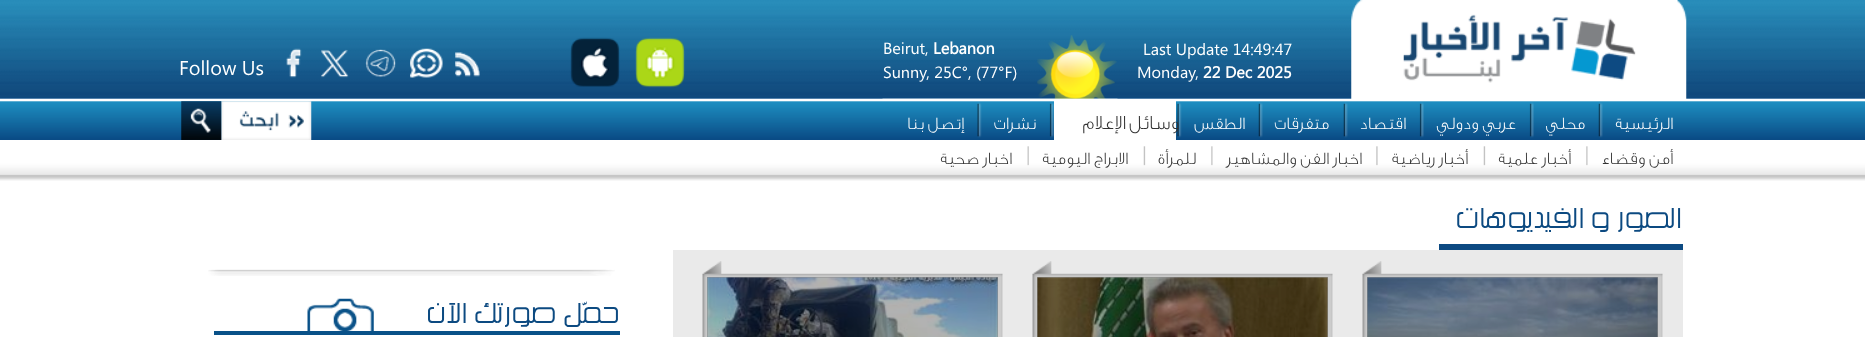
<svg xmlns="http://www.w3.org/2000/svg" width="1865" height="337" viewBox="0 0 1865 337">
  <style>
    .t1 { font: 16.25px Segoe UI; fill: #fff; }
    .t2 { font: bold 16.25px Segoe UI; fill: #fff; }
    .t3 { font: 20px Segoe UI; fill: #fff; }
    .t4 { font: 200 17.5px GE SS; direction: rtl; fill: #fff; }
    .t5 { font: 200 20px GE SS; letter-spacing: 1.25px; direction: rtl; fill: #333; }
    .t6 { font: 200 17.5px GE SS; direction: rtl; fill: #333; }
    .t7 { font: 500 25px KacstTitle; direction: rtl; fill: #0c4a81; }
  </style>
  <rect width="100%" height="100%" fill="#fff"/>
  <image x="0" y="0" width="1865" height="140" href="images/1.png"/>
  <image x="1351" y="0" width="336" height="99" href="images/2.png"/>
  <text x="1143" y="55" class="t1">Last Update 14:49:47</text>
  <text x="1203" y="78" class="t2">22 Dec 2025</text>
  <text x="1137" y="78" class="t1">Monday,</text>
  <image x="1037" y="35" width="80" height="64" href="images/3.png"/>
  <text x="933" y="54" class="t2">Lebanon</text>
  <text x="883" y="54" class="t1">Beirut,</text>
  <text x="883" y="78" class="t1">Sunny, 25C°, (77°F)</text>
  <image x="882" y="98" width="236" height="18" href="images/4.png"/>
  <image x="635" y="37" width="50" height="51" href="images/5.png"/>
  <image x="570" y="37" width="50" height="50" href="images/6.png"/>
  <image x="455" y="52" width="25" height="25" href="images/7.png"/>
  <image x="410" y="48" width="33" height="30" href="images/8.png"/>
  <image x="365" y="49" width="31" height="29" href="images/9.png"/>
  <image x="321" y="49" width="28" height="29" href="images/10.png"/>
  <image x="286" y="48" width="16" height="30" href="images/11.png"/>
  <text x="179" y="75" class="t3">Follow Us</text>
  <text x="1673" y="129" class="t4">الرئيسية</text>
  <image x="1598" y="102" width="5" height="36" href="images/12.png"/>
  <text x="1585" y="129" class="t4">محلي</text>
  <image x="1529" y="102" width="5" height="36" href="images/13.png"/>
  <text x="1516" y="129" class="t4">عربي ودولي</text>
  <image x="1419" y="102" width="5" height="36" href="images/14.png"/>
  <text x="1406" y="129" class="t4">اقتصاد</text>
  <image x="1343" y="102" width="5" height="36" href="images/15.png"/>
  <text x="1329" y="129" class="t4">متفرقات</text>
  <image x="1258" y="102" width="5" height="36" href="images/16.png"/>
  <text x="1245" y="129" class="t4">الطقس</text>
  <image x="1177" y="102" width="5" height="36" href="images/17.png"/>
  <rect x="1054" y="101" width="122" height="39" fill="#fff"/>
  <text x="1179" y="129" word-spacing="-1" class="t5">وسائل الإعلام</text>
  <image x="1049" y="102" width="5" height="36" href="images/18.png"/>
  <text x="1036" y="129" class="t4">نشرات</text>
  <image x="977" y="102" width="5" height="36" href="images/19.png"/>
  <text x="964" y="129" class="t4">إتصل بنا</text>
  <image x="221" y="101" width="91" height="39" href="images/20.png"/>
  <image x="181" y="101" width="41" height="39" href="images/21.png"/>
  <image x="0" y="140" width="1865" height="41" href="images/22.png"/>
  <text x="1673" y="164" class="t6">أمن وقضاء</text>
  <image x="1586" y="146" width="2" height="20" href="images/23.png"/>
  <text x="1571" y="164" class="t6">أخبار علمية</text>
  <image x="1483" y="146" width="3" height="20" href="images/24.png"/>
  <text x="1468" y="164" class="t6">أخبار رياضية</text>
  <image x="1376" y="146" width="2" height="20" href="images/25.png"/>
  <text x="1362" y="164" class="t6">اخبار الفن والمشاهير</text>
  <image x="1211" y="146" width="2" height="20" href="images/23.png"/>
  <text x="1196" y="164" class="t6">للمرأة</text>
  <image x="1143" y="146" width="3" height="20" href="images/24.png"/>
  <text x="1128" y="164" class="t6">الابراج اليومية</text>
  <image x="1027" y="146" width="2" height="20" href="images/26.png"/>
  <text x="1012" y="164" class="t6">اخبار صحية</text>
  <text x="1682" y="228" class="t7">الصور و الفيديوهات</text>
  <rect x="1439" y="244" width="244" height="6" fill="#0d4a82"/>
  <rect x="673" y="250" width="1010" height="87" fill="#eaeaea"/>
  <image x="1362" y="261" width="301" height="76" href="images/27.png"/>
  <image x="1367" y="277" width="291" height="60" href="images/28.png"/>
  <rect x="1367" y="277" width="291" height="60" fill="#0000004d"/>
  <image x="1032" y="261" width="301" height="76" href="images/27.png"/>
  <image x="1037" y="277" width="291" height="60" href="images/29.png"/>
  <rect x="1037" y="277" width="291" height="60" fill="#0000004d"/>
  <image x="702" y="261" width="301" height="76" href="images/27.png"/>
  <image x="707" y="277" width="291" height="60" href="images/30.png"/>
  <rect x="707" y="277" width="291" height="60" fill="#0000004d"/>
  <image x="208" y="269" width="407" height="7" href="images/31.png"/>
  <text x="620" y="323" class="t7">حمّل صورتك الآن</text>
  <image x="307" y="298" width="67" height="33" href="images/32.png"/>
  <rect x="214" y="331" width="406" height="4" fill="#095188"/>
</svg>
